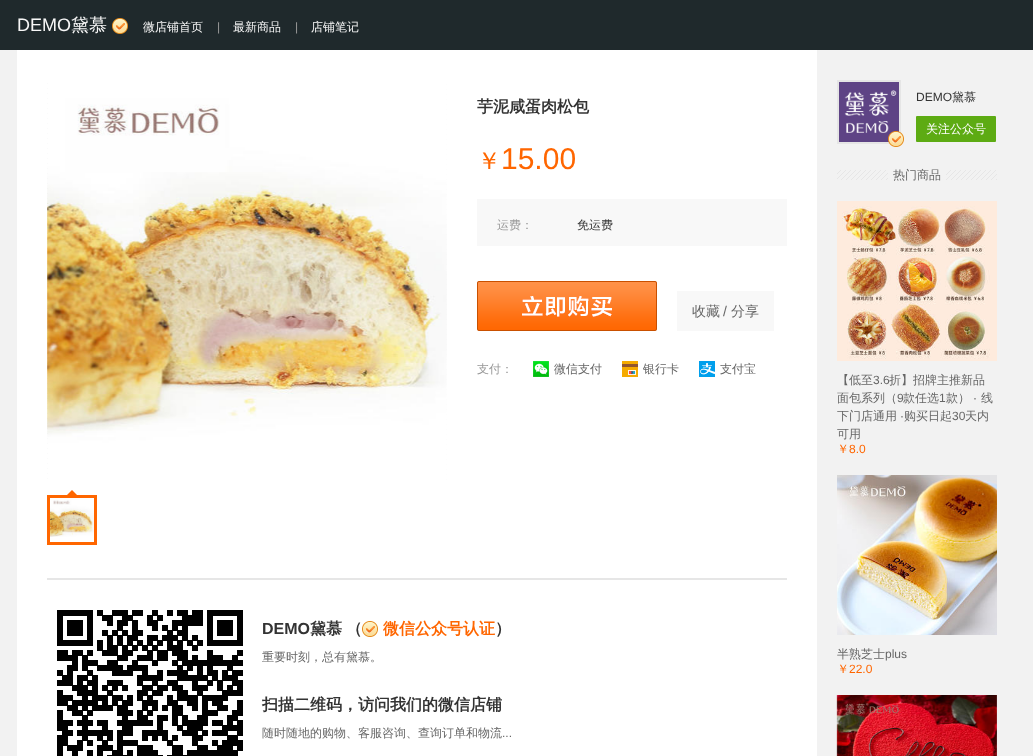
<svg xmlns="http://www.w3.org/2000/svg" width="1033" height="756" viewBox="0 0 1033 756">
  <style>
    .t1 { font: 18px Liberation Sans; fill: #f7f7f7; }
    .t2 { font: 500 18px WenQuanYi Zen Hei; fill: #f7f7f7; }
    .t3 { font: 500 12px WenQuanYi Zen Hei; fill: #f7f7f7; }
    .t4 { font: 12px Liberation Sans; fill: #999; }
    .t5 { font: bold 16px WenQuanYi Zen Hei; fill: #333; }
    .t6 { font: 500 24px WenQuanYi Zen Hei; fill: #f60; }
    .t7 { font: 30px Liberation Sans; fill: #f60; }
    .t8 { font: 500 12px WenQuanYi Zen Hei; fill: #999; }
    .t9 { font: 500 12px WenQuanYi Zen Hei; fill: #333; }
    .t10 { font: 500 14px WenQuanYi Zen Hei; fill: #666; }
    .t11 { font: 14px Liberation Sans; fill: #666; }
    .t12 { font: 500 12px WenQuanYi Zen Hei; fill: #666; }
    .t13 { font: bold 16px Liberation Sans; fill: #333; }
    .t14 { font: bold 16px WenQuanYi Zen Hei; fill: #f60; }
    .t15 { font: 12px Liberation Sans; fill: #666; }
    .t16 { font: 12px Liberation Sans; fill: #333; }
    .t17 { font: 500 12px WenQuanYi Zen Hei; fill: #fff; }
    .t18 { font: 500 12px WenQuanYi Zen Hei; fill: #f60; }
    .t19 { font: 12px Liberation Sans; fill: #f60; }
  </style>
  <rect width="100%" height="100%" fill="#f2f2f2"/>
  <rect x="0" y="0" width="1033" height="50" fill="#1f292c"/>
  <text x="17" y="31" class="t1">DEMO</text>
  <text x="71" y="31" class="t2">黛慕</text>
  <image x="112" y="18" width="16" height="16" href="images/1.png"/>
  <text x="143" y="31" class="t3">微店铺首页</text>
  <text x="217" y="31" class="t4">|</text>
  <text x="233" y="31" class="t3">最新商品</text>
  <text x="295" y="31" class="t4">|</text>
  <text x="311" y="31" class="t3">店铺笔记</text>
  <rect x="17" y="50" width="800" height="706" fill="#fff"/>
  <image x="47" y="83" width="400" height="397" href="images/2.png"/>
  <image x="47" y="80" width="400" height="400" href="images/3.png"/>
  <rect x="48.5" y="496.5" width="47" height="47" fill="none" stroke="#f60" stroke-width="3"/>
  <path d="M77 495H67L72 490Z" fill="#f60"/>
  <image x="50" y="500" width="44" height="37" href="images/4.png"/>
  <text x="477" y="112" class="t5">芋泥咸蛋肉松包</text>
  <text x="477" y="169" class="t6">￥</text>
  <text x="501" y="169" class="t7">15.00</text>
  <rect x="477" y="199" width="310" height="47" fill="#f8f8f8"/>
  <text x="497" y="229" class="t8">运费：</text>
  <text x="577" y="229" class="t9">免运费</text>
  <image x="477" y="281" width="180" height="50" href="images/5.png"/>
  <rect x="677" y="291" width="97" height="40" fill="#f8f8f8"/>
  <text x="692" y="316" class="t10">收藏</text>
  <text x="723" y="316" class="t11">/</text>
  <text x="731" y="316" class="t10">分享</text>
  <text x="477" y="373" class="t8">支付：</text>
  <image x="533" y="361" width="16" height="16" href="images/6.png"/>
  <text x="554" y="373" class="t12">微信支付</text>
  <image x="622" y="361" width="16" height="16" href="images/7.png"/>
  <text x="643" y="373" class="t12">银行卡</text>
  <image x="699" y="361" width="16" height="16" href="images/8.png"/>
  <text x="720" y="373" class="t12">支付宝</text>
  <rect x="47" y="578" width="740" height="2" fill="#e6e6e6"/>
  <image x="57" y="610" width="186" height="146" href="images/9.png"/>
  <text x="262" y="634" class="t13">DEMO</text>
  <text x="310" y="634" class="t5">黛慕</text>
  <text x="346" y="634" class="t5">（</text>
  <image x="362" y="621" width="16" height="16" href="images/10.png"/>
  <text x="383" y="634" class="t14">微信公众号认证</text>
  <text x="495" y="634" class="t5">）</text>
  <text x="262" y="661" class="t12">重要时刻，总有黛慕。</text>
  <text x="262" y="710" class="t5">扫描二维码，访问我们的微信店铺</text>
  <text x="262" y="737" class="t12">随时随地的购物、客服咨询、查询订单和物流</text>
  <text x="502" y="737" class="t15">...</text>
  <rect x="838" y="81" width="62" height="62" fill="none" stroke="#e5e5e5" stroke-width="2"/>
  <image x="839" y="82" width="60" height="60" href="images/11.png"/>
  <image x="888" y="131" width="16" height="16" href="images/12.png"/>
  <text x="916" y="101" class="t16">DEMO</text>
  <text x="952" y="101" class="t9">黛慕</text>
  <rect x="916" y="116" width="80" height="26" rx="1" fill="#5dab13"/>
  <text x="926" y="133" class="t17">关注公众号</text>
  <image x="837" y="170" width="160" height="10" href="images/13.png"/>
  <rect x="888" y="170" width="58" height="10" fill="#f2f2f2"/>
  <text x="893" y="179" class="t12">热门商品</text>
  <image x="837" y="201" width="160" height="160" href="images/14.png"/>
  <text x="837" y="384" class="t12">【低至</text>
  <text x="873" y="384" class="t15">3.6</text>
  <text x="889" y="384" class="t12">折】招牌主推新品</text>
  <text x="837" y="402" class="t12">面包系列（</text>
  <text x="897" y="402" class="t15">9</text>
  <text x="903" y="402" class="t12">款任选</text>
  <text x="939" y="402" class="t15">1</text>
  <text x="946" y="402" class="t12">款）</text>
  <text x="973" y="402" class="t15">·</text>
  <text x="981" y="402" class="t12">线</text>
  <text x="837" y="420" class="t12">下门店通用</text>
  <text x="900" y="420" class="t15">·</text>
  <text x="904" y="420" class="t12">购买日起</text>
  <text x="952" y="420" class="t15">30</text>
  <text x="965" y="420" class="t12">天内</text>
  <text x="837" y="438" class="t12">可用</text>
  <text x="837" y="453" class="t18">￥</text>
  <text x="849" y="453" class="t19">8.0</text>
  <image x="837" y="475" width="160" height="160" href="images/15.png"/>
  <text x="837" y="658" class="t12">半熟芝士</text>
  <text x="885" y="658" class="t15">plus</text>
  <text x="837" y="673" class="t18">￥</text>
  <text x="849" y="673" class="t19">22.0</text>
  <image x="836" y="695" width="161" height="61" href="images/16.png"/>
</svg>
